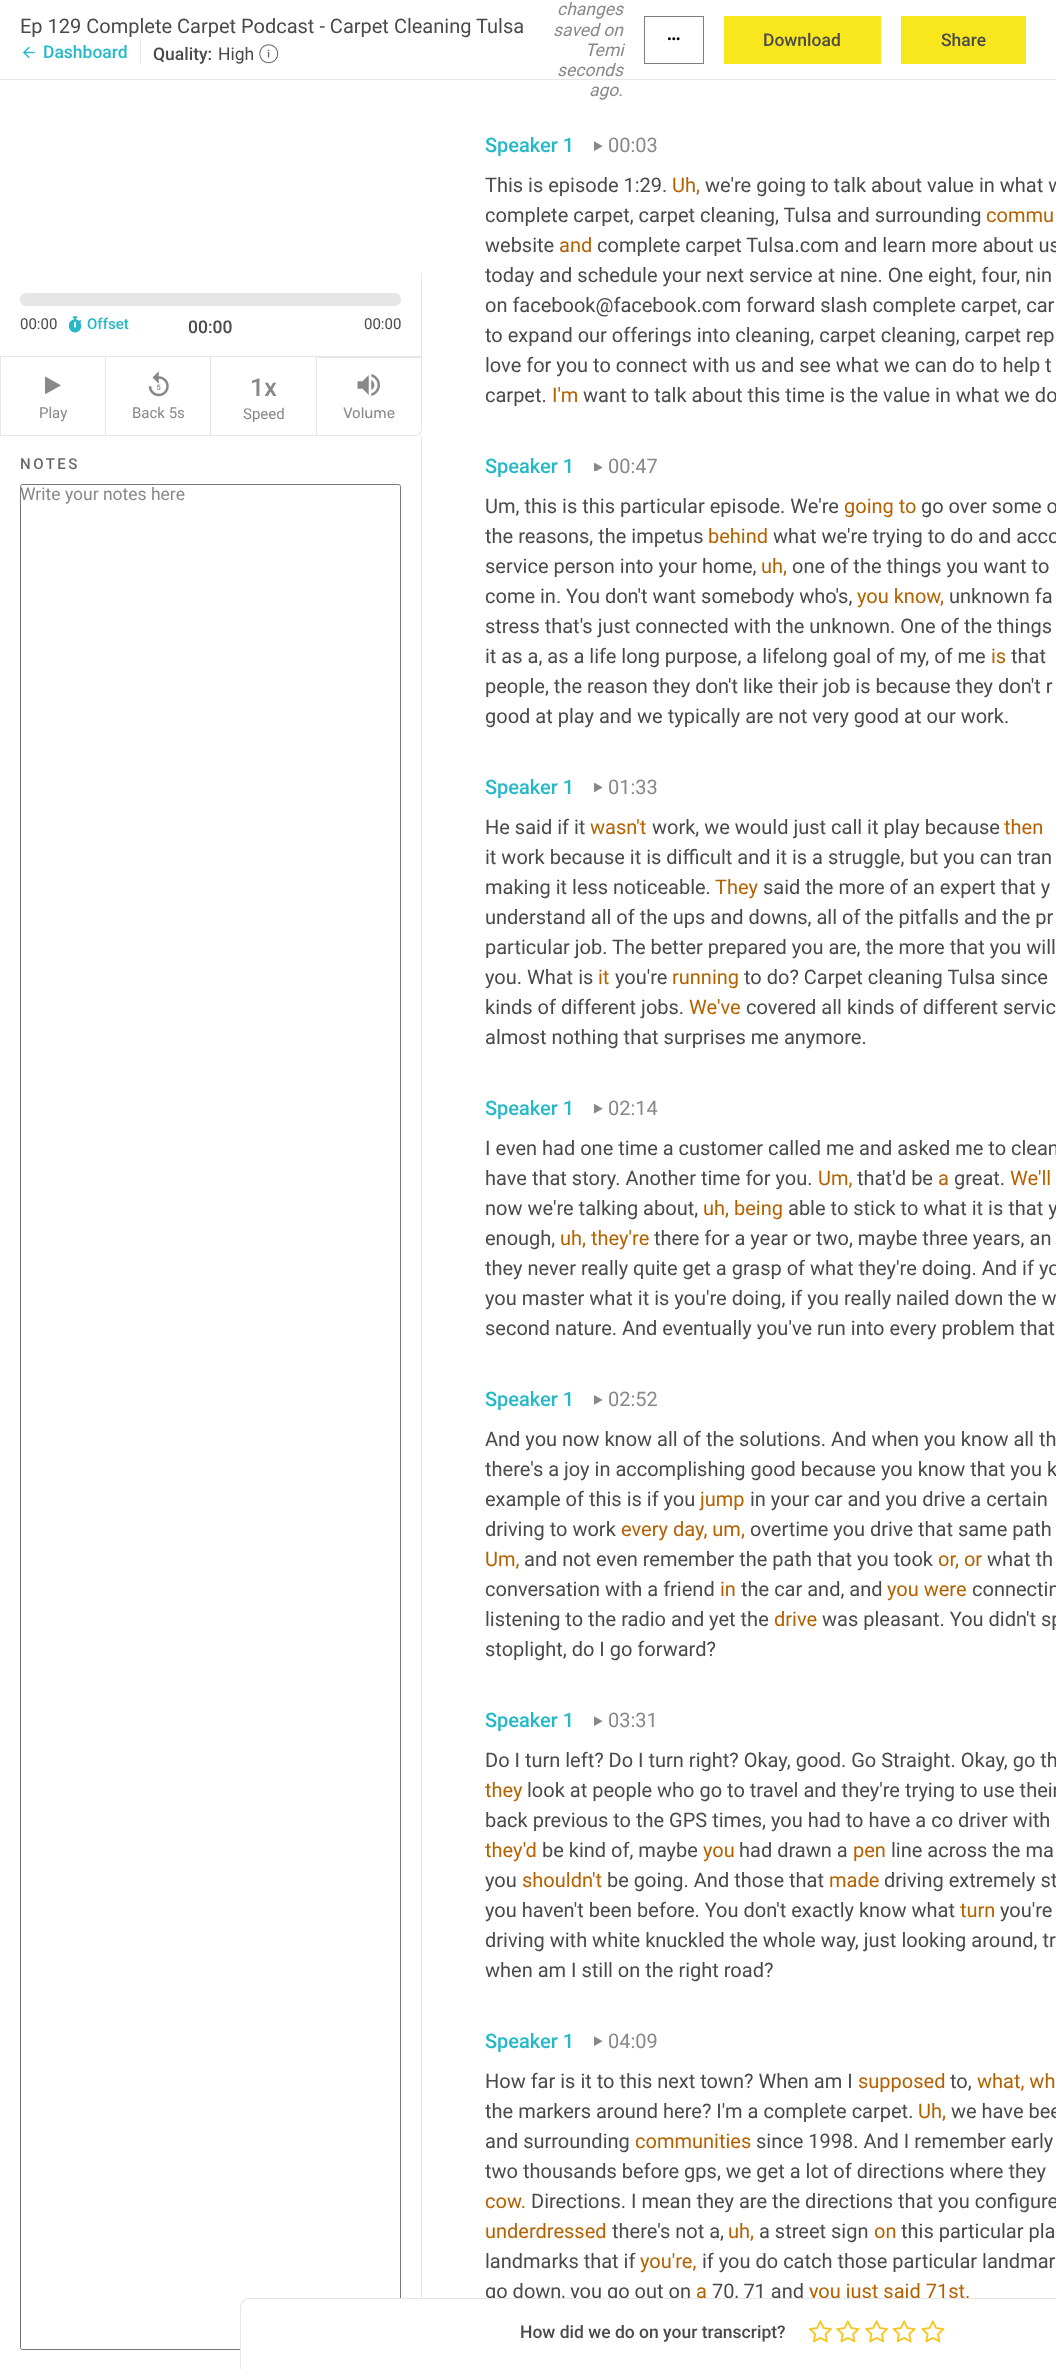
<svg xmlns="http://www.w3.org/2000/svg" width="1056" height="2369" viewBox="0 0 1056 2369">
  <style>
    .t1 { font: 20px Roboto; fill: #4a4a4a; }
    .t2 { font: 500 17.5px Roboto; fill: #25b9c8; }
    .t3 { font: 500 17.5px Roboto; fill: #4a4a4a; }
    .t4 { font: 17.5px Roboto; fill: #4a4a4a; }
    .t5 { font: italic 17.5px Roboto; fill: #888; }
    .t6 { font: 15px Roboto; fill: #4a4a4a; }
    .t7 { font: 500 15px Roboto; fill: #25b9c8; }
    .t8 { font: 15px Roboto; fill: #888; }
    .t9 { font: 500 25px Roboto; fill: #888; }
    .t10 { font: 15px Rubik; fill: #888; }
    .t11 { font: 500 15px Roboto; letter-spacing: 2.5px; fill: #6a6a6a; }
    .t12 { font: 17.5px Roboto; fill: #888; }
    .t13 { font: 500 20px Roboto; fill: #25b9c8; }
    .t14 { font: 20px Roboto; fill: #888; }
    .t15 { font: 20px Roboto; fill: #b46100; }
  </style>
  <rect width="100%" height="100%" fill="#fff"/>
  <rect x="0" y="79" width="1056" height="1" fill="#e6e6e6"/>
  <text x="20" y="33" class="t1">Ep 129 Complete Carpet Podcast - Carpet Cleaning Tulsa</text>
  <image x="23" y="46" width="12" height="13" href="images/1.png"/>
  <text x="43" y="58" class="t2">Dashboard</text>
  <rect x="140" y="39" width="1" height="25" fill="#e6e6e6"/>
  <text x="153" y="60" class="t3">Quality:</text>
  <text x="218" y="60" class="t4">High</text>
  <image x="259" y="44" width="20" height="20" href="images/2.png"/>
  <text x="557" y="15" class="t5">changes</text>
  <text x="553" y="36" class="t5">saved on</text>
  <text x="585" y="56" class="t5">Temi</text>
  <text x="557" y="76" class="t5">seconds</text>
  <text x="589" y="96" class="t5">ago.</text>
  <rect x="644.5" y="16.5" width="59" height="47" fill="none" stroke="#808080"/>
  <image x="667" y="37" width="13" height="4" href="images/3.png"/>
  <rect x="724" y="16" width="157" height="48" fill="#f8e71c"/>
  <text x="763" y="46" class="t3">Download</text>
  <rect x="901" y="16" width="125" height="48" fill="#f8e71c"/>
  <text x="941" y="46" class="t3">Share</text>
  <rect x="421" y="273" width="1" height="83" fill="#e6e6e6"/>
  <rect x="20" y="293" width="381" height="13" rx="6" fill="#e6e6e6"/>
  <text x="20" y="329" class="t6">00:00</text>
  <image x="69" y="316" width="12" height="17" href="images/4.png"/>
  <text x="87" y="329" class="t7">Offset</text>
  <text x="188" y="333" class="t3">00:00</text>
  <text x="364" y="329" class="t6">00:00</text>
  <rect x="0.5" y="356.5" width="105" height="79" fill="none" stroke="#e6e6e6"/>
  <image x="45" y="376" width="16" height="18" href="images/5.png"/>
  <text x="39" y="418" class="t8">Play</text>
  <rect x="106" y="356" width="212" height="1" fill="#e6e6e6"/>
  <rect x="210" y="356" width="1" height="80" fill="#e6e6e6"/>
  <rect x="106" y="435" width="105" height="1" fill="#e6e6e6"/>
  <image x="148" y="371" width="21" height="26" href="images/6.png"/>
  <text x="132" y="418" class="t8">Back 5s</text>
  <rect x="316" y="356" width="1" height="80" fill="#e6e6e6"/>
  <rect x="211" y="435" width="107" height="1" fill="#e6e6e6"/>
  <text x="250" y="396" class="t9">1x</text>
  <text x="243" y="419" class="t8">Speed</text>
  <path d="M318 356H422V429C422 433 419 436 415 436H318ZM318 358H421V429C421 432 418 435 415 435H318Z" fill="#e6e6e6" fill-rule="evenodd"/>
  <image x="357" y="374" width="23" height="22" href="images/7.png"/>
  <text x="343" y="418" class="t10">Volume</text>
  <rect x="421" y="436" width="1" height="1862" fill="#e6e6e6"/>
  <text x="20" y="469" class="t11">NOTES</text>
  <rect x="20.5" y="484.5" width="380" height="1865" rx="2" fill="none" stroke="#767676"/>
  <text x="20" y="500" class="t12">Write your notes here</text>
  <text x="485" y="152" class="t13">Speaker 1</text>
  <image x="594" y="141" width="9" height="10" href="images/8.png"/>
  <text x="608" y="152" class="t14">00:03</text>
  <text x="485" y="192" class="t1">This is episode 1:29.</text>
  <text x="672" y="192" class="t15">Uh,</text>
  <text x="705" y="192" class="t1">we're going to talk about value in what w</text>
  <text x="485" y="222" class="t1">complete carpet, carpet cleaning, Tulsa and surrounding</text>
  <text x="986" y="222" class="t15">commu</text>
  <text x="485" y="252" class="t1">website</text>
  <text x="559" y="252" class="t15">and</text>
  <text x="597" y="252" class="t1">complete carpet Tulsa.com and learn more about us</text>
  <text x="485" y="282" class="t1">today and schedule your next service at nine. One eight, four, nin</text>
  <text x="485" y="312" class="t1">on facebook@facebook.com forward slash complete carpet, car</text>
  <text x="485" y="342" class="t1">to expand our offerings into cleaning, carpet cleaning, carpet rep</text>
  <text x="485" y="372" class="t1">love for you to connect with us and see what we can do to help t</text>
  <text x="485" y="402" class="t1">carpet.</text>
  <text x="552" y="402" class="t15">I'm</text>
  <text x="583" y="402" class="t1">want to talk about this time is the value in what we do</text>
  <text x="485" y="473" class="t13">Speaker 1</text>
  <image x="594" y="463" width="9" height="8" href="images/9.png"/>
  <text x="608" y="473" class="t14">00:47</text>
  <text x="485" y="513" class="t1">Um, this is this particular episode. We're</text>
  <text x="844" y="513" class="t15">going to</text>
  <text x="921" y="513" class="t1">go over some o</text>
  <text x="485" y="543" class="t1">the reasons, the impetus</text>
  <text x="708" y="543" class="t15">behind</text>
  <text x="773" y="543" class="t1">what we're trying to do and acco</text>
  <text x="485" y="573" class="t1">service person into your home,</text>
  <text x="761" y="573" class="t15">uh,</text>
  <text x="792" y="573" class="t1">one of the things you want to</text>
  <text x="485" y="603" class="t1">come in. You don't want somebody who's,</text>
  <text x="857" y="603" class="t15">you know,</text>
  <text x="949" y="603" class="t1">unknown fa</text>
  <text x="485" y="633" class="t1">stress that's just connected with the unknown. One of the things</text>
  <text x="485" y="663" class="t1">it as a, as a life long purpose, a lifelong goal of my, of me</text>
  <text x="991" y="663" class="t15">is</text>
  <text x="1011" y="663" class="t1">that</text>
  <text x="485" y="693" class="t1">people, the reason they don't like their job is because they don't r</text>
  <text x="485" y="723" class="t1">good at play and we typically are not very good at our work.</text>
  <text x="485" y="794" class="t13">Speaker 1</text>
  <image x="594" y="783" width="9" height="10" href="images/10.png"/>
  <text x="608" y="794" class="t14">01:33</text>
  <text x="485" y="834" class="t1">He said if it</text>
  <text x="590" y="834" class="t15">wasn't</text>
  <text x="652" y="834" class="t1">work, we would just call it play because</text>
  <text x="1004" y="834" class="t15">then</text>
  <text x="485" y="864" class="t1">it work because it is difficult and it is a struggle, but you can tran</text>
  <text x="485" y="894" class="t1">making it less noticeable.</text>
  <text x="715" y="894" class="t15">They</text>
  <text x="763" y="894" class="t1">said the more of an expert that y</text>
  <text x="485" y="924" class="t1">understand all of the ups and downs, all of the pitfalls and the pr</text>
  <text x="485" y="954" class="t1">particular job. The better prepared you are, the more that you will</text>
  <text x="485" y="984" class="t1">you. What is</text>
  <text x="598" y="984" class="t15">it</text>
  <text x="615" y="984" class="t1">you're</text>
  <text x="672" y="984" class="t15">running</text>
  <text x="744" y="984" class="t1">to do? Carpet cleaning Tulsa since</text>
  <text x="485" y="1014" class="t1">kinds of different jobs.</text>
  <text x="689" y="1014" class="t15">We've</text>
  <text x="746" y="1014" class="t1">covered all kinds of different servic</text>
  <text x="485" y="1044" class="t1">almost nothing that surprises me anymore.</text>
  <text x="485" y="1115" class="t13">Speaker 1</text>
  <image x="594" y="1104" width="9" height="10" href="images/11.png"/>
  <text x="608" y="1115" class="t14">02:14</text>
  <text x="485" y="1155" class="t1">I even had one time a customer called me and asked me to clean</text>
  <text x="485" y="1185" class="t1">have that story. Another time for you.</text>
  <text x="818" y="1185" class="t15">Um,</text>
  <text x="857" y="1185" class="t1">that'd be</text>
  <text x="938" y="1185" class="t15">a</text>
  <text x="954" y="1185" class="t1">great.</text>
  <text x="1010" y="1185" class="t15">We'll</text>
  <text x="485" y="1215" class="t1">now we're talking about,</text>
  <text x="703" y="1215" class="t15">uh, being</text>
  <text x="788" y="1215" class="t1">able to stick to what it is that y</text>
  <text x="485" y="1245" class="t1">enough,</text>
  <text x="560" y="1245" class="t15">uh, they're</text>
  <text x="654" y="1245" class="t1">there for a year or two, maybe three years, an</text>
  <text x="485" y="1275" class="t1">they never really quite get a grasp of what they're doing. And if yo</text>
  <text x="485" y="1305" class="t1">you master what it is you're doing, if you really nailed down the w</text>
  <text x="485" y="1335" class="t1">second nature. And eventually you've run into every problem that</text>
  <text x="485" y="1406" class="t13">Speaker 1</text>
  <image x="594" y="1395" width="9" height="10" href="images/12.png"/>
  <text x="608" y="1406" class="t14">02:52</text>
  <text x="485" y="1446" class="t1">And you now know all of the solutions. And when you know all th</text>
  <text x="485" y="1476" class="t1">there's a joy in accomplishing good because you know that you k</text>
  <text x="485" y="1506" class="t1">example of this is if you</text>
  <text x="700" y="1506" class="t15">jump</text>
  <text x="750" y="1506" class="t1">in your car and you drive a certain</text>
  <text x="485" y="1536" class="t1">driving to work</text>
  <text x="621" y="1536" class="t15">every day, um,</text>
  <text x="750" y="1536" class="t1">overtime you drive that same path</text>
  <text x="485" y="1566" class="t15">Um,</text>
  <text x="524" y="1566" class="t1">and not even remember the path that you took</text>
  <text x="938" y="1566" class="t15">or, or</text>
  <text x="987" y="1566" class="t1">what th</text>
  <text x="485" y="1596" class="t1">conversation with a friend</text>
  <text x="720" y="1596" class="t15">in</text>
  <text x="741" y="1596" class="t1">the car and, and</text>
  <text x="887" y="1596" class="t15">you were</text>
  <text x="972" y="1596" class="t1">connectin</text>
  <text x="485" y="1626" class="t1">listening to the radio and yet the</text>
  <text x="774" y="1626" class="t15">drive</text>
  <text x="822" y="1626" class="t1">was pleasant. You didn't sp</text>
  <text x="485" y="1656" class="t1">stoplight, do I go forward?</text>
  <text x="485" y="1727" class="t13">Speaker 1</text>
  <image x="594" y="1716" width="9" height="10" href="images/8.png"/>
  <text x="608" y="1727" class="t14">03:31</text>
  <text x="485" y="1767" class="t1">Do I turn left? Do I turn right? Okay, good. Go Straight. Okay, go th</text>
  <text x="485" y="1797" class="t15">they</text>
  <text x="527" y="1797" class="t1">look at people who go to travel and they're trying to use their</text>
  <text x="485" y="1827" class="t1">back previous to the GPS times, you had to have a co driver with</text>
  <text x="485" y="1857" class="t15">they'd</text>
  <text x="542" y="1857" class="t1">be kind of, maybe</text>
  <text x="703" y="1857" class="t15">you</text>
  <text x="739" y="1857" class="t1">had drawn a</text>
  <text x="853" y="1857" class="t15">pen</text>
  <text x="891" y="1857" class="t1">line across the ma</text>
  <text x="485" y="1887" class="t1">you</text>
  <text x="522" y="1887" class="t15">shouldn't</text>
  <text x="607" y="1887" class="t1">be going. And those that</text>
  <text x="829" y="1887" class="t15">made</text>
  <text x="884" y="1887" class="t1">driving extremely st</text>
  <text x="485" y="1917" class="t1">you haven't been before. You don't exactly know what</text>
  <text x="960" y="1917" class="t15">turn</text>
  <text x="1000" y="1917" class="t1">you're</text>
  <text x="485" y="1947" class="t1">driving with white knuckled the whole way, just looking around, tr</text>
  <text x="485" y="1977" class="t1">when am I still on the right road?</text>
  <text x="485" y="2048" class="t13">Speaker 1</text>
  <image x="594" y="2036" width="9" height="10" href="images/8.png"/>
  <text x="608" y="2048" class="t14">04:09</text>
  <text x="485" y="2088" class="t1">How far is it to this next town? When am I</text>
  <text x="858" y="2088" class="t15">supposed</text>
  <text x="950" y="2088" class="t1">to,</text>
  <text x="977" y="2088" class="t15">what, wh</text>
  <text x="485" y="2118" class="t1">the markers around here? I'm a complete carpet.</text>
  <text x="918" y="2118" class="t15">Uh,</text>
  <text x="951" y="2118" class="t1">we have bee</text>
  <text x="485" y="2148" class="t1">and surrounding</text>
  <text x="635" y="2148" class="t15">communities</text>
  <text x="756" y="2148" class="t1">since 1998. And I remember early</text>
  <text x="485" y="2178" class="t1">two thousands before gps, we get a lot of directions where they</text>
  <text x="485" y="2208" class="t15">cow.</text>
  <text x="531" y="2208" class="t1">Directions. I mean they are the directions that you configure</text>
  <text x="485" y="2238" class="t15">underdressed</text>
  <text x="612" y="2238" class="t1">there's not a,</text>
  <text x="728" y="2238" class="t15">uh,</text>
  <text x="759" y="2238" class="t1">a street sign</text>
  <text x="874" y="2238" class="t15">on</text>
  <text x="901" y="2238" class="t1">this particular pla</text>
  <text x="485" y="2268" class="t1">landmarks that if</text>
  <text x="640" y="2268" class="t15">you're,</text>
  <text x="702" y="2268" class="t1">if you do catch those particular landmar</text>
  <text x="485" y="2298" class="t1">go down, you go out on</text>
  <text x="696" y="2298" class="t15">a</text>
  <text x="712" y="2298" class="t1">70, 71 and</text>
  <text x="809" y="2298" class="t15">you just said 71st.</text>
  <path d="M250 2299H1056C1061 2299 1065 2303 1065 2308V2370H241V2308C241 2303 245 2299 250 2299Z" fill="#fff"/>
  <path d="M250 2298H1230C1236 2298 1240 2302 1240 2308V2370H240V2308C240 2302 244 2298 250 2298ZM250 2299H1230C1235 2299 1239 2303 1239 2308V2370H241V2308C241 2303 245 2299 250 2299Z" fill="#e6e6e6" fill-rule="evenodd"/>
  <text x="520" y="2338" class="t3">How did we do on your transcript?</text>
  <image x="808" y="2320" width="24" height="23" href="images/13.png"/>
  <image x="836" y="2320" width="24" height="23" href="images/14.png"/>
  <image x="865" y="2320" width="24" height="23" href="images/15.png"/>
  <image x="892" y="2320" width="24" height="23" href="images/16.png"/>
  <image x="921" y="2320" width="24" height="23" href="images/14.png"/>
</svg>
